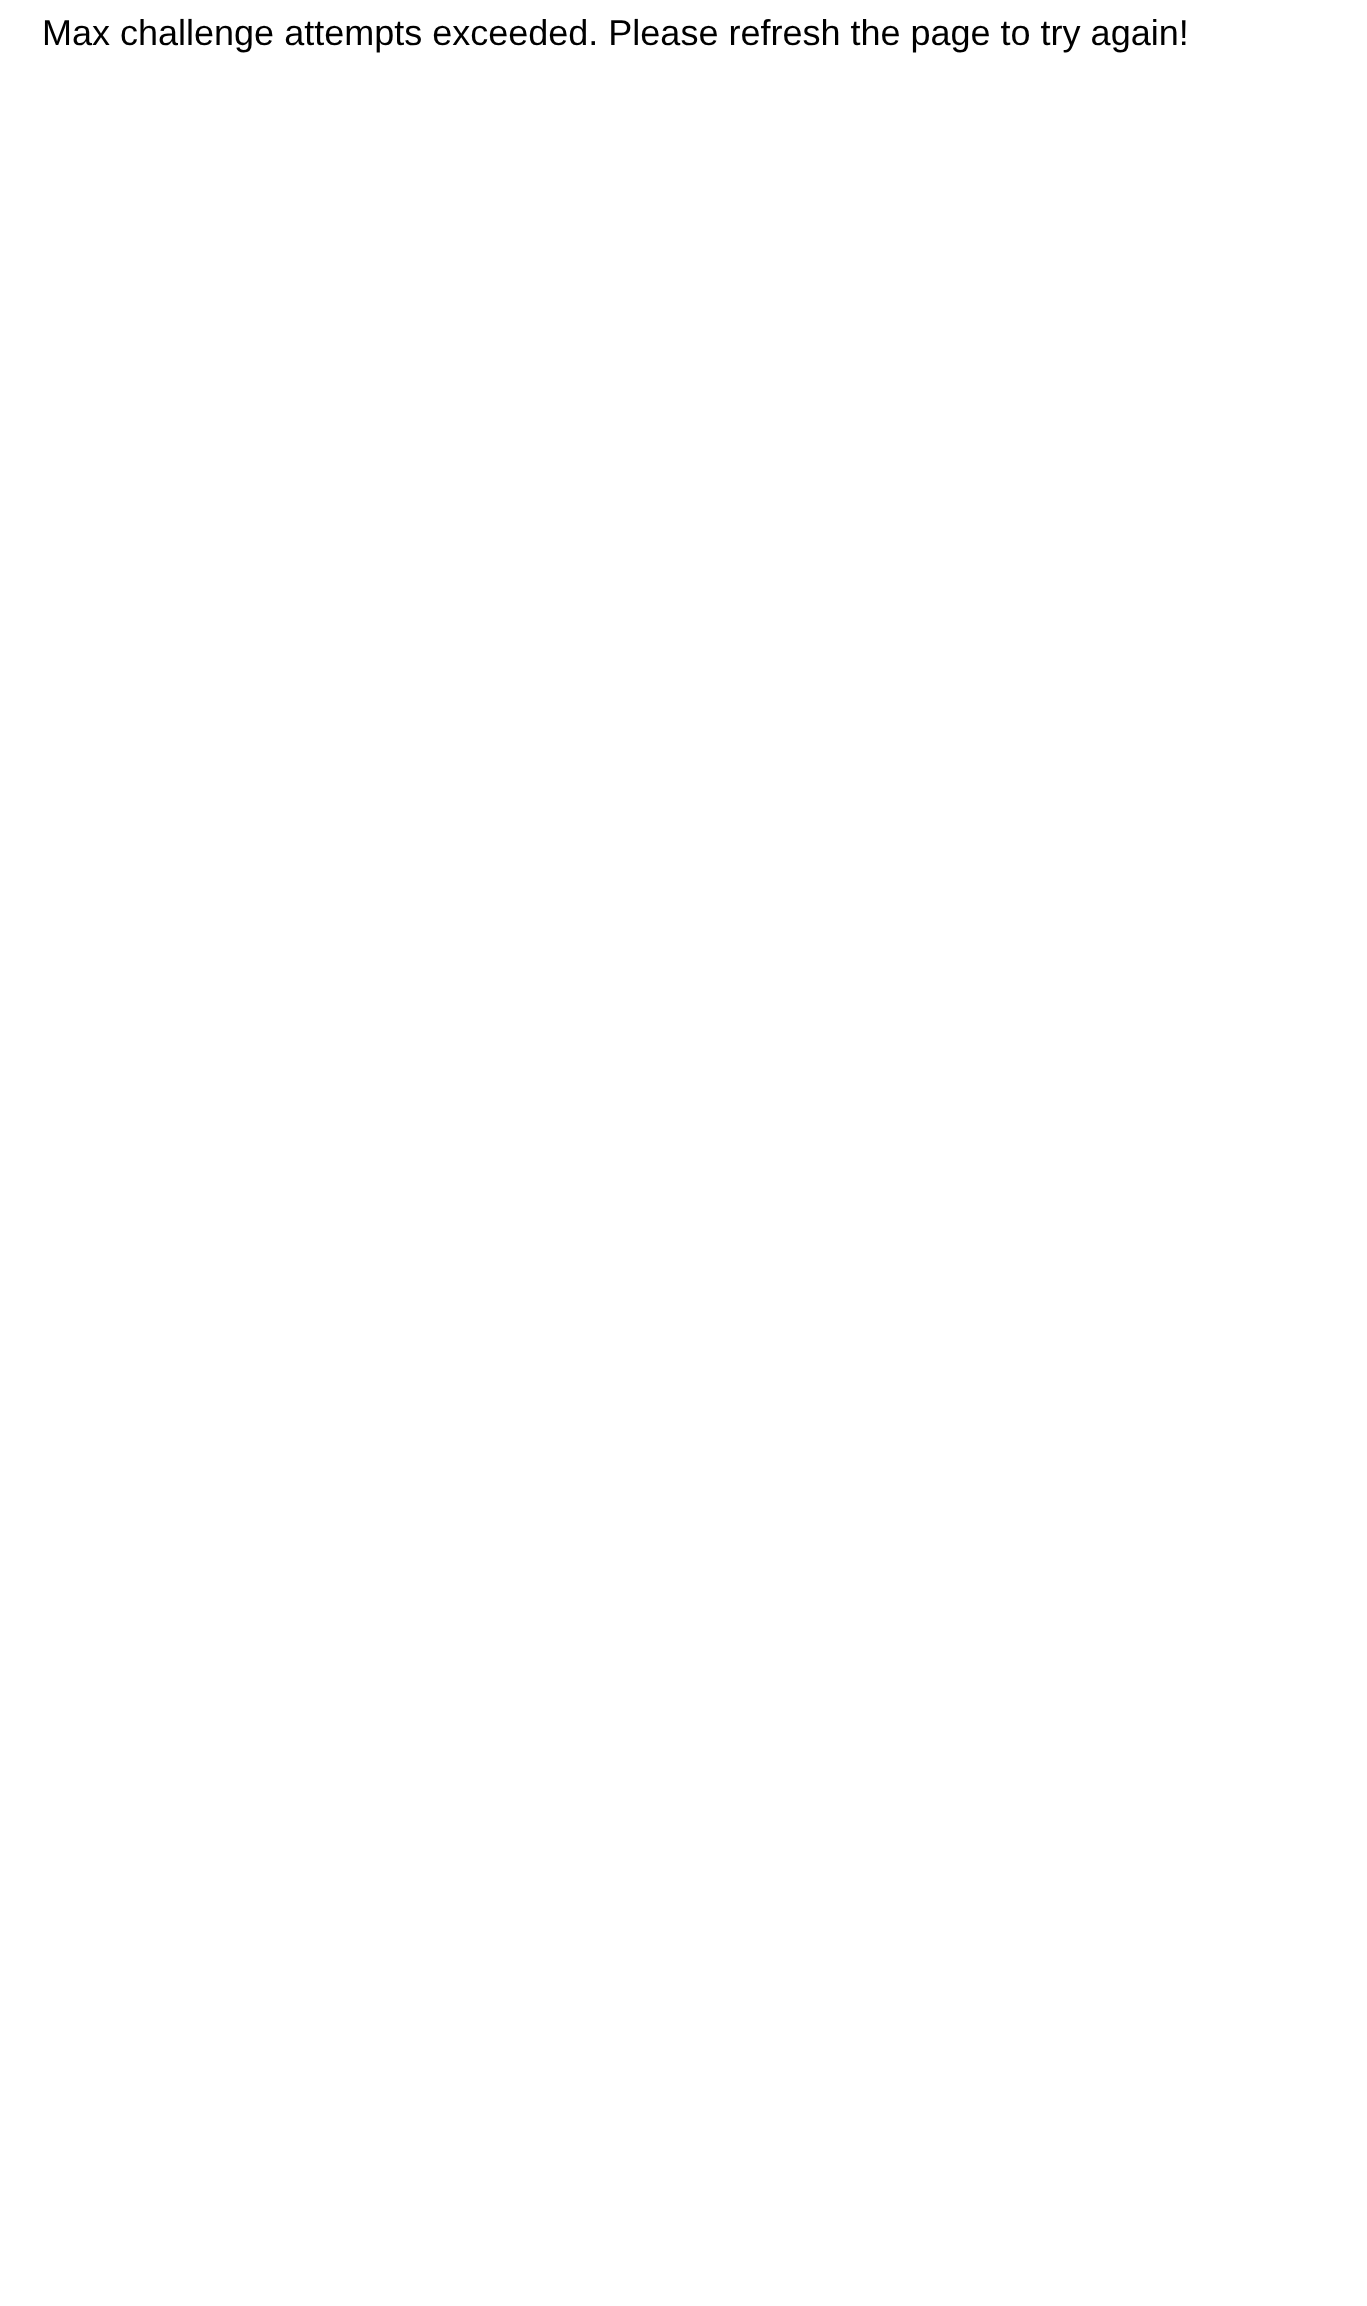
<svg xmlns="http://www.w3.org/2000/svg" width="1367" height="2306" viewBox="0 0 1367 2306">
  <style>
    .t1 { font: 36px Liberation Sans; fill: #000; }
  </style>
  <rect width="100%" height="100%" fill="#fff"/>
  <text x="42" y="45" class="t1">Max challenge attempts exceeded. Please refresh the page to try again!</text>
</svg>
